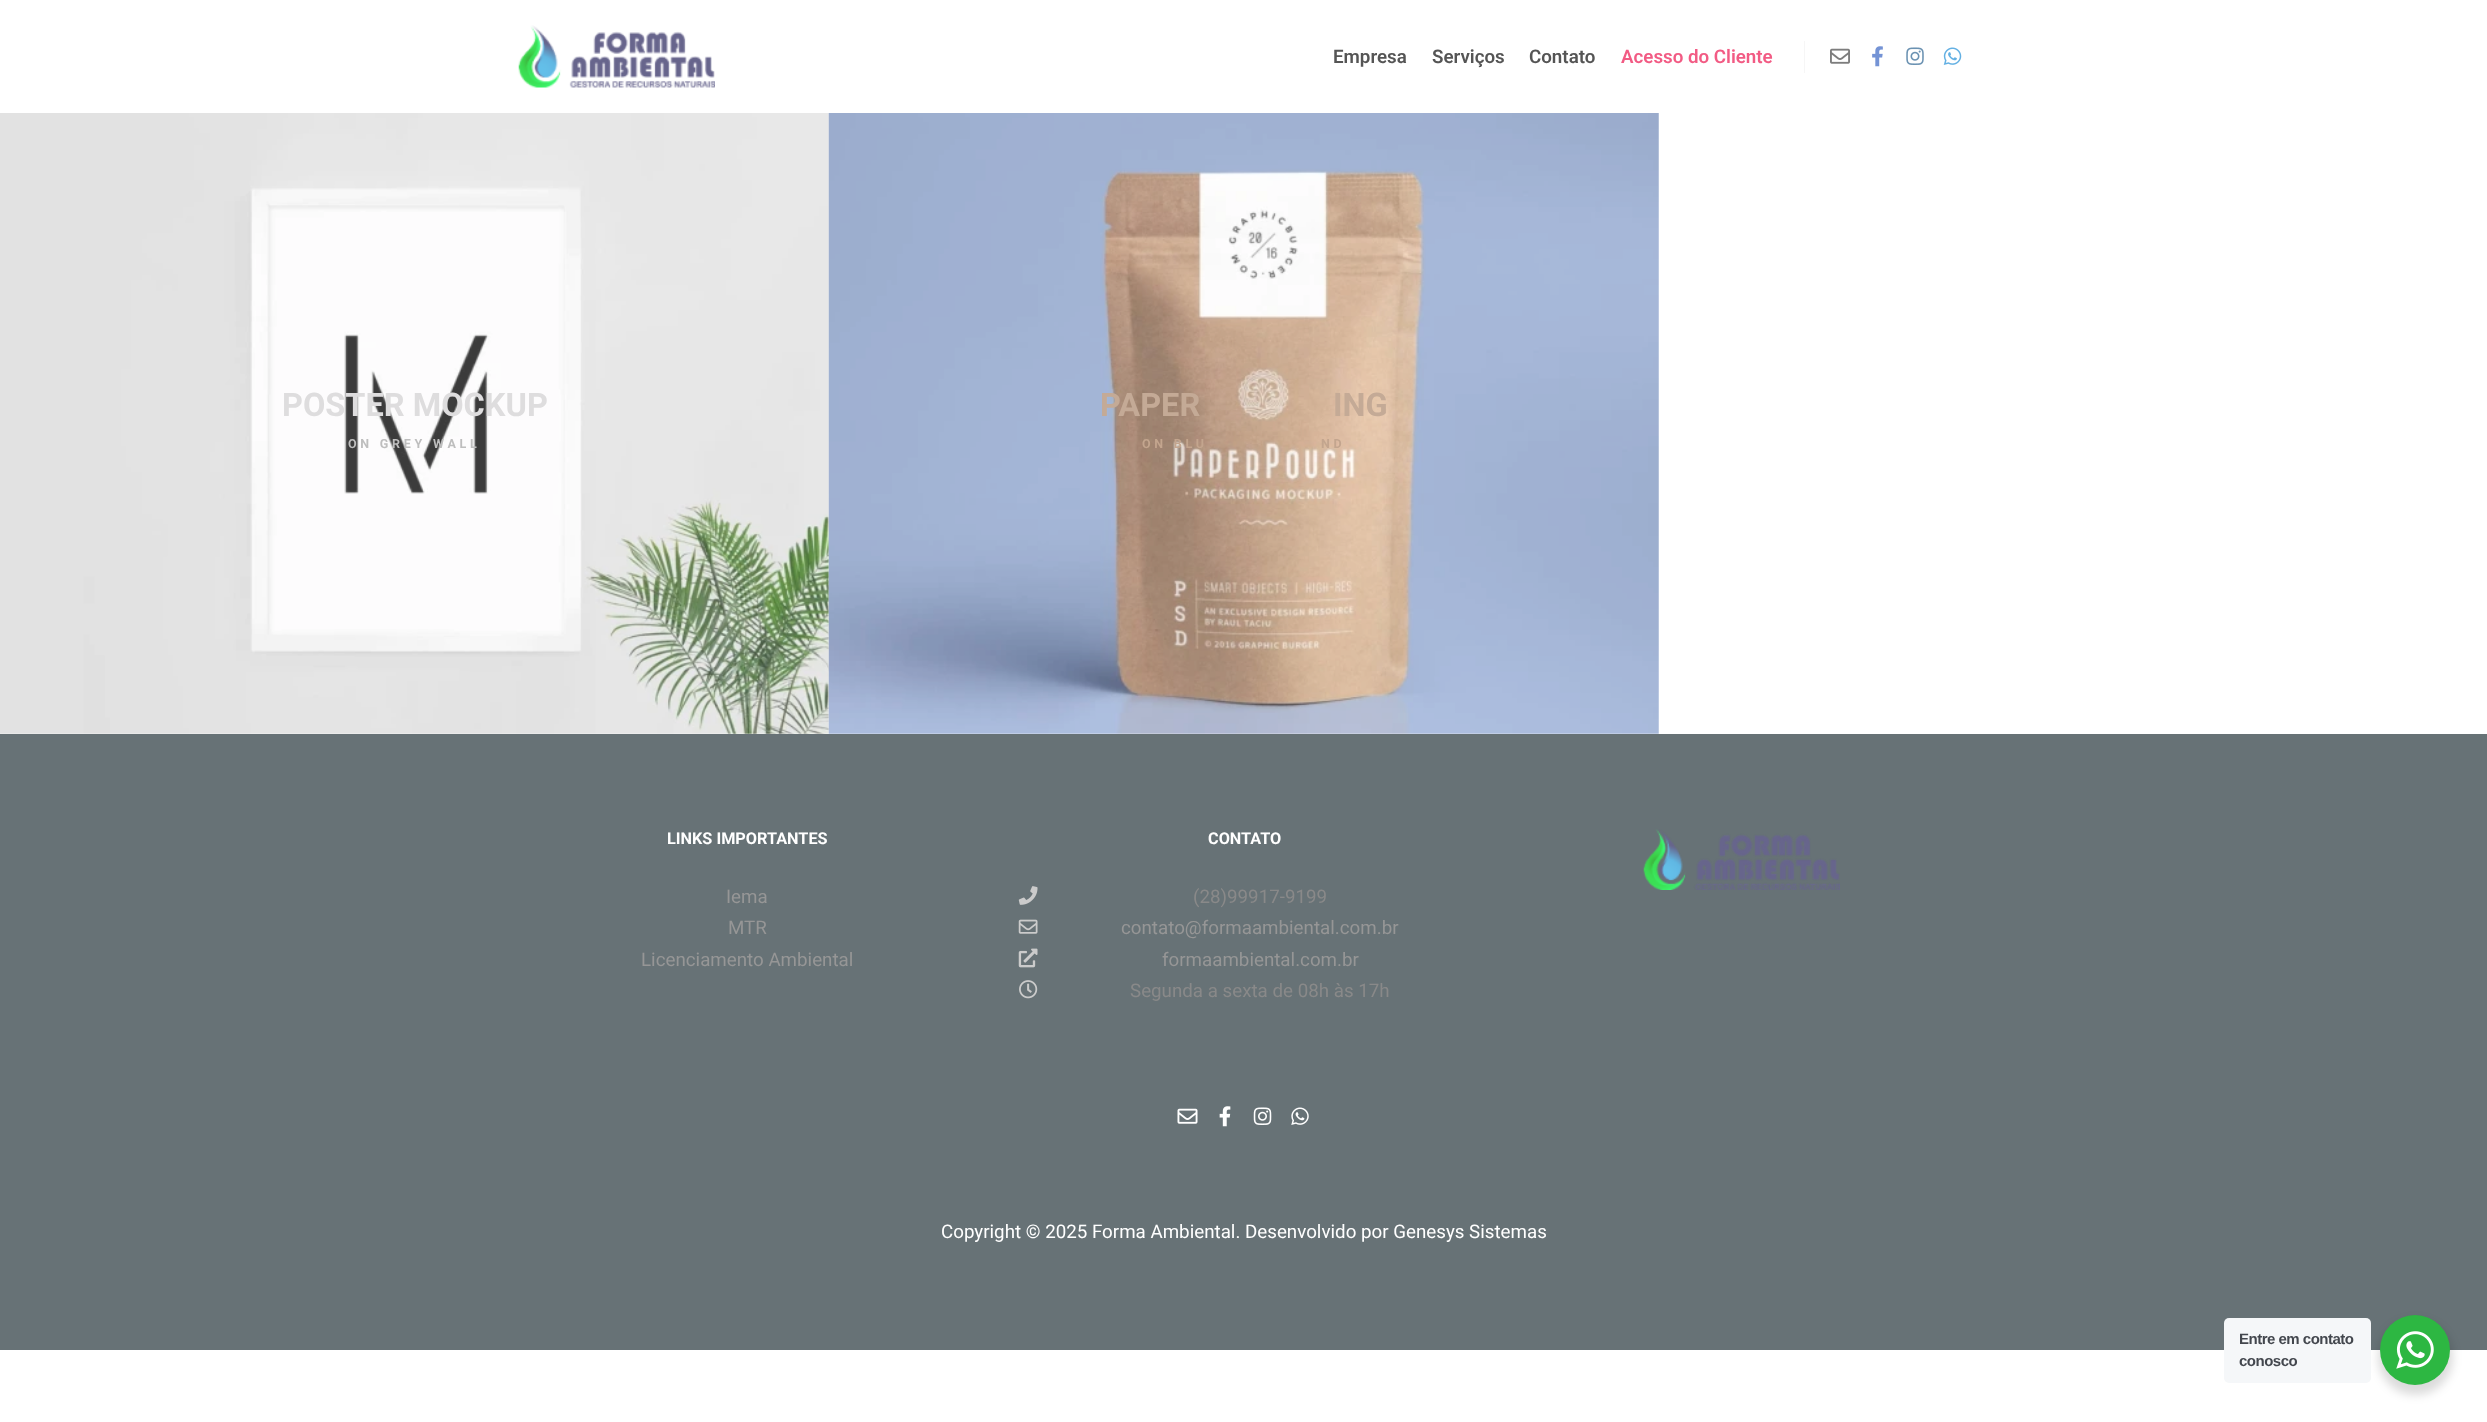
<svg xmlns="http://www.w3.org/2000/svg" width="2487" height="1422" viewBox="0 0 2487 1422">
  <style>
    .t1 { font: 600 18.75px Roboto; fill: #555; }
    .t2 { font: 600 18.75px Roboto; fill: #f25b84; }
    .t3 { font: bold 32.5px Roboto; fill: #deddde; }
    .t4 { font: bold 12.5px Roboto; letter-spacing: 3.75px; fill: #bebebe; }
    .t5 { font: bold 32.5px Roboto; fill: #c4aa96; }
    .t6 { font: bold 12.5px Roboto; letter-spacing: 3.75px; fill: #c3a58e; }
    .t7 { font: bold 16.25px Roboto; fill: #fff; }
    .t8 { font: 18.75px Roboto; fill: #969696; }
    .t9 { font: 18.75px Roboto; fill: #898989; }
    .t10 { font: 18.75px Roboto; fill: #fff; }
    .t11 { font: bold 15px Liberation Sans; letter-spacing: -0.5px; fill: #43474e; }
  </style>
  <rect width="100%" height="100%" fill="#fff"/>
  <image x="518" y="25" width="197" height="63" href="images/1.png"/>
  <text x="1333" y="63" class="t1">Empresa</text>
  <text x="1432" y="63" class="t1">Serviços</text>
  <text x="1529" y="63" class="t1">Contato</text>
  <text x="1621" y="63" class="t2">Acesso do Cliente</text>
  <rect x="1804" y="41" width="1" height="32" fill="#f6f6f6"/>
  <image x="1830" y="48" width="20" height="16" href="images/2.png"/>
  <image x="1872" y="46" width="11" height="21" href="images/3.png"/>
  <image x="1906" y="47" width="18" height="18" href="images/4.png"/>
  <image x="1943" y="47" width="19" height="18" href="images/5.png"/>
  <image x="0" y="113" width="829" height="621" href="images/6.png"/>
  <text x="282" y="416" class="t3">POSTER MOCKUP</text>
  <text x="348" y="448" class="t4">ON GREY WALL</text>
  <image x="828" y="113" width="831" height="621" href="images/7.png"/>
  <text x="1100" y="416" class="t5">PAPER</text>
  <text x="1333" y="416" class="t5">ING</text>
  <text x="1142" y="448" class="t6">ON BLU</text>
  <text x="1321" y="448" class="t6">ND</text>
  <rect x="0" y="734" width="2487" height="616" fill="#677276"/>
  <text x="667" y="844" class="t7">LINKS IMPORTANTES</text>
  <text x="726" y="903" class="t8">Iema</text>
  <text x="728" y="934" class="t8">MTR</text>
  <text x="641" y="966" class="t8">Licenciamento Ambiental</text>
  <text x="1208" y="844" class="t7">CONTATO</text>
  <image x="1018" y="886" width="20" height="19" href="images/8.png"/>
  <text x="1193" y="903" class="t9">(28)99917-9199</text>
  <image x="1018" y="919" width="20" height="15" href="images/9.png"/>
  <text x="1121" y="934" class="t8">contato@formaambiental.com.br</text>
  <image x="1018" y="948" width="20" height="20" href="images/10.png"/>
  <text x="1162" y="966" class="t8">formaambiental.com.br</text>
  <image x="1019" y="980" width="19" height="19" href="images/11.png"/>
  <text x="1130" y="997" class="t9">Segunda a sexta de 08h às 17h</text>
  <image x="1643" y="829" width="197" height="61" href="images/12.png"/>
  <image x="1177" y="1108" width="21" height="16" href="images/13.png"/>
  <image x="1219" y="1106" width="12" height="21" href="images/14.png"/>
  <image x="1253" y="1107" width="19" height="18" href="images/15.png"/>
  <image x="1291" y="1107" width="18" height="18" href="images/16.png"/>
  <text x="941" y="1238" class="t10">Copyright © 2025 Forma Ambiental. Desenvolvido por Genesys Sistemas</text>
  <rect x="2378" y="1320" width="75" height="75" rx="37.5" fill="#00000024" filter="blur(5px)"/>
  <rect x="2224" y="1318" width="147" height="65" rx="5" fill="#f5f7f9"/>
  <text x="2239" y="1344" class="t11">Entre em contato</text>
  <text x="2239" y="1366" class="t11">conosco</text>
  <circle cx="2415" cy="1350" r="35" fill="#2db742"/>
  <image x="2396" y="1331" width="38" height="38" href="images/17.png"/>
</svg>
